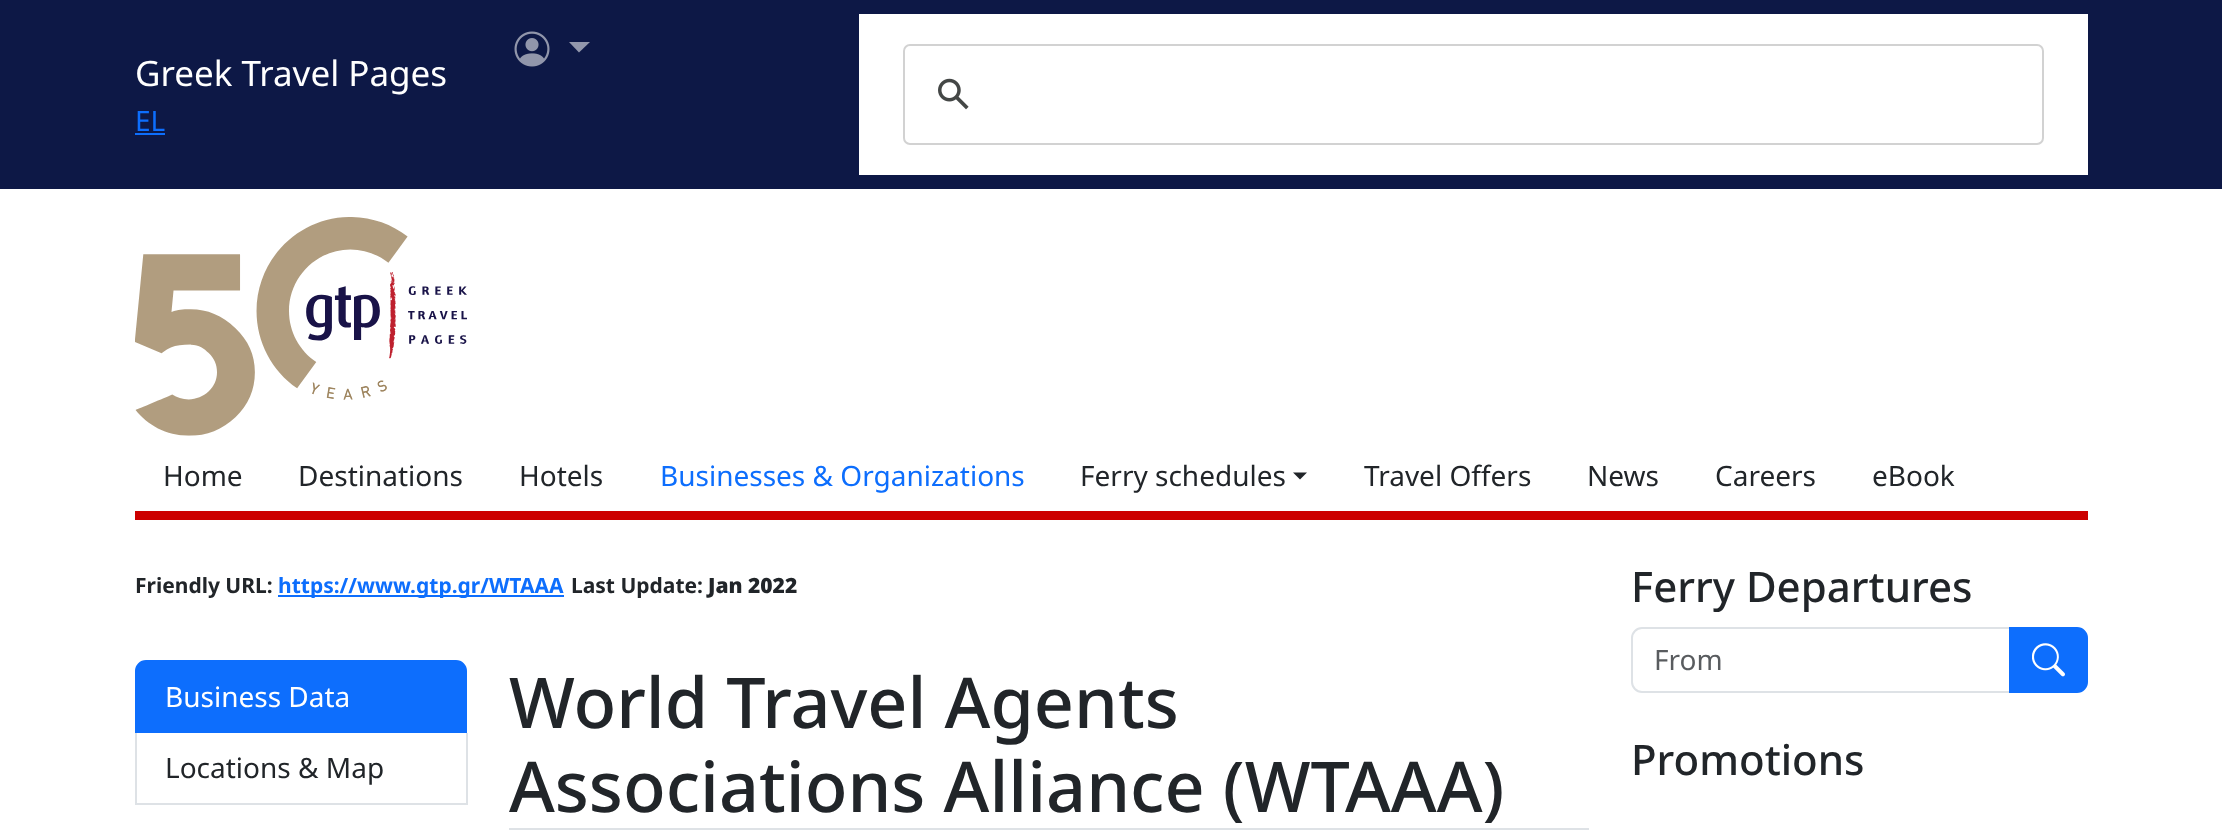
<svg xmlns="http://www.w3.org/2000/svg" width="2222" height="835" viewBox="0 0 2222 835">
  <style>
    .t1 { font: 35px Noto Sans; fill: #fff; }
    .t2 { font: 28px Noto Sans; fill: #0d6efd; }
    .t3 { font: 28px Noto Sans; fill: #212529; }
    .t4 { font: bold 21px Noto Sans; fill: #212529; }
    .t5 { font: bold 21px Noto Sans; fill: #0d6efd; }
    .t6 { font: 900 21px Noto Sans; fill: #212529; }
    .t7 { font: 28px Noto Sans; fill: #fff; }
    .t8 { font: 500 70px Noto Sans; fill: #212529; }
    .t9 { font: 500 42px Noto Sans; fill: #212529; }
    .t10 { font: 28px Noto Sans; fill: #595c5f; }
  </style>
  <rect width="100%" height="100%" fill="#fff"/>
  <rect x="0" y="0" width="2222" height="189" fill="#0d1846"/>
  <image x="514" y="31" width="36" height="36" href="images/1.png"/>
  <path d="M569 42H590L579 52.5Z" fill="#9297ac"/>
  <rect x="859" y="14" width="1229" height="161" fill="#fff"/>
  <rect x="904" y="45" width="1139" height="99" rx="6" fill="none" stroke="#d2d2d2" stroke-width="2"/>
  <image x="938" y="78" width="31" height="32" href="images/2.png"/>
  <text x="135" y="86" class="t1">Greek Travel Pages</text>
  <text x="135" y="131" class="t2">EL</text>
  <rect x="135" y="133" width="30" height="2" fill="#0d6efd"/>
  <image x="135" y="217" width="332" height="219" href="images/3.png"/>
  <rect x="135" y="511" width="1953" height="9" fill="#c00"/>
  <text x="163" y="486" class="t3">Home</text>
  <text x="298" y="486" class="t3">Destinations</text>
  <text x="519" y="486" class="t3">Hotels</text>
  <text x="660" y="486" class="t2">Businesses &amp; Organizations</text>
  <text x="1080" y="486" class="t3">Ferry schedules</text>
  <path d="M1293 472.5H1307L1300 479.5Z" fill="#212529"/>
  <text x="1364" y="486" class="t3">Travel Offers</text>
  <text x="1587" y="486" class="t3">News</text>
  <text x="1715" y="486" class="t3">Careers</text>
  <text x="1872" y="486" class="t3">eBook</text>
  <text x="135" y="593" class="t4">Friendly URL:</text>
  <rect x="278" y="595" width="286" height="2" fill="#0d6efd"/>
  <text x="278" y="593" class="t5">https://www.gtp.gr/WTAAA</text>
  <text x="571" y="593" class="t4">Last Update:</text>
  <text x="708" y="593" class="t6">Jan 2022</text>
  <path d="M146 661H456C461.5 661 466 665.5 466 671V732H136V671C136 665.5 140.5 661 146 661Z" fill="#0d6efd" stroke="#0d6efd" stroke-width="2"/>
  <text x="165" y="707" class="t7">Business Data</text>
  <rect x="466" y="733" width="2" height="72" fill="#dee2e6"/>
  <rect x="135" y="803" width="332" height="2" fill="#dee2e6"/>
  <rect x="135" y="733" width="2" height="72" fill="#dee2e6"/>
  <text x="165" y="778" class="t3">Locations &amp; Map</text>
  <rect x="509" y="828" width="1080" height="2" fill="#dee2e6"/>
  <text x="509" y="728" class="t8">World Travel Agents</text>
  <text x="509" y="812" class="t8">Associations Alliance (WTAAA)</text>
  <text x="1631" y="602" class="t9">Ferry Departures</text>
  <path d="M1642 628H2010V692H1642C1636.5 692 1632 687.5 1632 682V638C1632 632.5 1636.5 628 1642 628Z" fill="none" stroke="#dee2e6" stroke-width="2"/>
  <text x="1654" y="670" class="t10">From</text>
  <path d="M2010 628H2077C2082.5 628 2087 632.5 2087 638V682C2087 687.5 2082.5 692 2077 692H2010Z" fill="#0d6efd" stroke="#0d6efd" stroke-width="2"/>
  <image x="2032" y="643" width="33" height="34" href="images/4.png"/>
  <text x="1631" y="775" class="t9">Promotions</text>
</svg>
